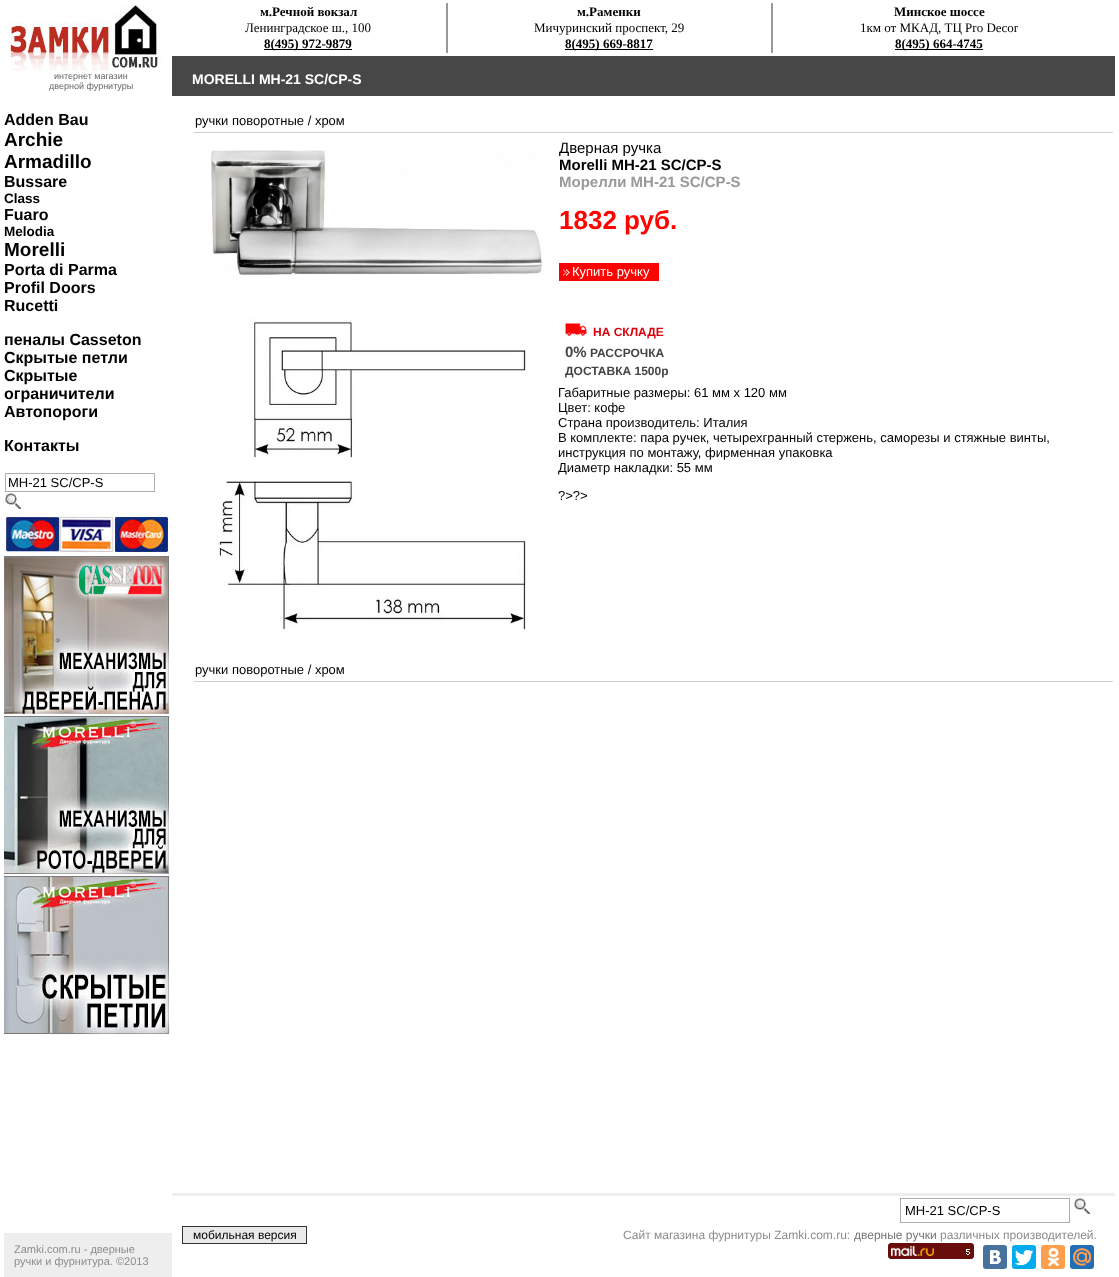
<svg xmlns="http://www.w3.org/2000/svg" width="1119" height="1277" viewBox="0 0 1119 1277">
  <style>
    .t1 { font: 9px Liberation Sans; fill: #666; }
    .t2 { font: bold 16px Liberation Sans; fill: #000; }
    .t3 { font: bold 19px Liberation Sans; fill: #000; }
    .t4 { font: bold 13.5px Liberation Sans; fill: #000; }
    .t5 { font: 13px Liberation Sans; fill: #000; }
    .t6 { font: 11px Liberation Sans; fill: #8c8c8c; }
    .t7 { font: bold 13px Liberation Serif; fill: #000; }
    .t8 { font: 13px Liberation Serif; fill: #000; }
    .t9 { font: bold 14px Liberation Sans; fill: #fff; }
    .t10 { font: 15px Liberation Sans; fill: #000; }
    .t11 { font: bold 15px Liberation Sans; fill: #000; }
    .t12 { font: bold 15px Liberation Sans; fill: #999; }
    .t13 { font: bold 26px Liberation Sans; fill: #ff0300; }
    .t14 { font: 13px Liberation Sans; fill: #fff; }
    .t15 { font: bold 12px Liberation Sans; fill: #db010c; }
    .t16 { font: bold 15px Liberation Sans; fill: #454545; }
    .t17 { font: bold 12px Liberation Sans; fill: #454545; }
    .t18 { font: 12px Liberation Sans; fill: #000; }
    .t19 { font: 12px Liberation Sans; fill: #8c8c8c; }
    .t20 { font: 12px Liberation Sans; fill: #737373; }
  </style>
  <rect width="100%" height="100%" fill="#fff"/>
  <image x="10" y="5" width="152" height="66" href="images/1.png"/>
  <text x="54" y="79" class="t1">интернет магазин</text>
  <text x="49" y="89" class="t1">дверной фурнитуры</text>
  <text x="4" y="125" class="t2">Adden Bau</text>
  <text x="4" y="146" class="t3">Archie</text>
  <text x="4" y="168" class="t3">Armadillo</text>
  <text x="4" y="187" class="t2">Bussare</text>
  <text x="4" y="203" class="t4">Class</text>
  <text x="4" y="220" class="t2">Fuaro</text>
  <text x="4" y="236" class="t4">Melodia</text>
  <text x="4" y="256" class="t3">Morelli</text>
  <text x="4" y="275" class="t2">Porta di Parma</text>
  <text x="4" y="293" class="t2">Profil Doors</text>
  <text x="4" y="311" class="t2">Rucetti</text>
  <text x="4" y="345" class="t2">пеналы Casseton</text>
  <text x="4" y="363" class="t2">Скрытые петли</text>
  <text x="4" y="381" class="t2">Скрытые</text>
  <text x="4" y="399" class="t2">ограничители</text>
  <text x="4" y="417" class="t2">Автопороги</text>
  <text x="4" y="451" class="t2">Контакты</text>
  <rect x="5.5" y="473.5" width="149" height="18" fill="none" stroke="#adadad"/>
  <text x="8" y="487" class="t5">MH-21 SC/CP-S</text>
  <image x="5" y="493" width="16" height="16" href="images/2.png"/>
  <image x="4" y="513" width="166" height="40" href="images/3.png"/>
  <image x="4" y="555" width="166" height="160" href="images/4.png"/>
  <image x="4" y="715" width="166" height="160" href="images/5.png"/>
  <image x="4" y="875" width="166" height="160" href="images/6.png"/>
  <rect x="4" y="1233" width="168" height="44" fill="#eee"/>
  <text x="14" y="1253" class="t6">Zamki.com.ru - дверные</text>
  <text x="14" y="1265" class="t6">ручки и фурнитура. ©2013</text>
  <rect x="446" y="3" width="2" height="50" fill="#999"/>
  <text x="260" y="16" class="t7">м.Речной вокзал</text>
  <text x="245" y="32" class="t8">Ленинградское ш., 100</text>
  <rect x="264" y="49" width="88" height="1" fill="#000"/>
  <text x="264" y="48" class="t7">8(495) 972-9879</text>
  <rect x="771" y="3" width="2" height="50" fill="#999"/>
  <text x="577" y="16" class="t7">м.Раменки</text>
  <text x="534" y="32" class="t8">Мичуринский проспект, 29</text>
  <rect x="565" y="49" width="88" height="1" fill="#000"/>
  <text x="565" y="48" class="t7">8(495) 669-8817</text>
  <text x="894" y="16" class="t7">Минское шоссе</text>
  <text x="860" y="32" class="t8">1км от МКАД, ТЦ Pro Decor</text>
  <rect x="895" y="49" width="88" height="1" fill="#000"/>
  <text x="895" y="48" class="t7">8(495) 664-4745</text>
  <rect x="172" y="56" width="943" height="40" fill="#474747"/>
  <text x="192" y="84" class="t9">MORELLI MH-21 SC/CP-S</text>
  <rect x="194" y="132" width="919" height="1" fill="#cecece"/>
  <text x="195" y="125" class="t5">ручки поворотные / хром</text>
  <image x="211" y="150" width="331" height="125" href="images/7.png"/>
  <image x="218" y="317" width="309" height="315" href="images/8.png"/>
  <text x="559" y="153" class="t10">Дверная ручка</text>
  <text x="559" y="170" class="t11">Morelli MH-21 SC/CP-S</text>
  <text x="559" y="187" class="t12">Морелли MH-21 SC/CP-S</text>
  <text x="559" y="229" class="t13">1832 руб.</text>
  <image x="559" y="263" width="100" height="18" href="images/9.png"/>
  <text x="572" y="276" class="t14">Купить ручку</text>
  <image x="565" y="323" width="22" height="13" href="images/10.png"/>
  <text x="593" y="336" class="t15">НА СКЛАДЕ</text>
  <text x="565" y="357" class="t16">0%</text>
  <text x="590" y="357" class="t17">РАССРОЧКА</text>
  <text x="565" y="375" class="t17">ДОСТАВКА 1500р</text>
  <text x="558" y="397" class="t5">Габаритные размеры: 61 мм х 120 мм</text>
  <text x="558" y="412" class="t5">Цвет: кофе</text>
  <text x="558" y="427" class="t5">Страна производитель: Италия</text>
  <text x="558" y="442" class="t5">В комплекте: пара ручек, четырехгранный стержень, саморезы и стяжные винты,</text>
  <text x="558" y="457" class="t5">инструкция по монтажу, фирменная упаковка</text>
  <text x="558" y="472" class="t5">Диаметр накладки: 55 мм</text>
  <text x="558" y="500" class="t5">?&gt;?&gt;</text>
  <rect x="194" y="681" width="919" height="1" fill="#cecece"/>
  <text x="195" y="674" class="t5">ручки поворотные / хром</text>
  <rect x="172" y="1193" width="943" height="3" fill="#eee"/>
  <rect x="182.5" y="1226.5" width="124" height="17" fill="#eaeaea" stroke="#333"/>
  <text x="193" y="1239" class="t18">мобильная версия</text>
  <rect x="900.5" y="1198.5" width="169" height="24" fill="none" stroke="#adadad"/>
  <text x="905" y="1215" class="t5">MH-21 SC/CP-S</text>
  <image x="1074" y="1198" width="16" height="16" href="images/2.png"/>
  <text x="623" y="1239" class="t19">Сайт магазина фурнитуры Zamki.com.ru:</text>
  <text x="854" y="1239" class="t20">дверные ручки</text>
  <text x="940" y="1239" class="t19">различных производителей.</text>
  <image x="888" y="1243" width="86" height="16" href="images/11.png"/>
  <rect x="983" y="1245" width="24" height="24" rx="3" fill="#48729e"/>
  <image x="990" y="1250" width="11" height="14" href="images/12.png"/>
  <rect x="1012" y="1245" width="24" height="24" rx="3" fill="#00aced"/>
  <image x="1015" y="1250" width="18" height="15" href="images/13.png"/>
  <rect x="1041" y="1245" width="24" height="24" rx="3" fill="#ff9f4d"/>
  <image x="1048" y="1248" width="11" height="18" href="images/14.png"/>
  <rect x="1070" y="1245" width="24" height="24" rx="3" fill="#226eb7"/>
  <image x="1073" y="1248" width="18" height="18" href="images/15.png"/>
</svg>
